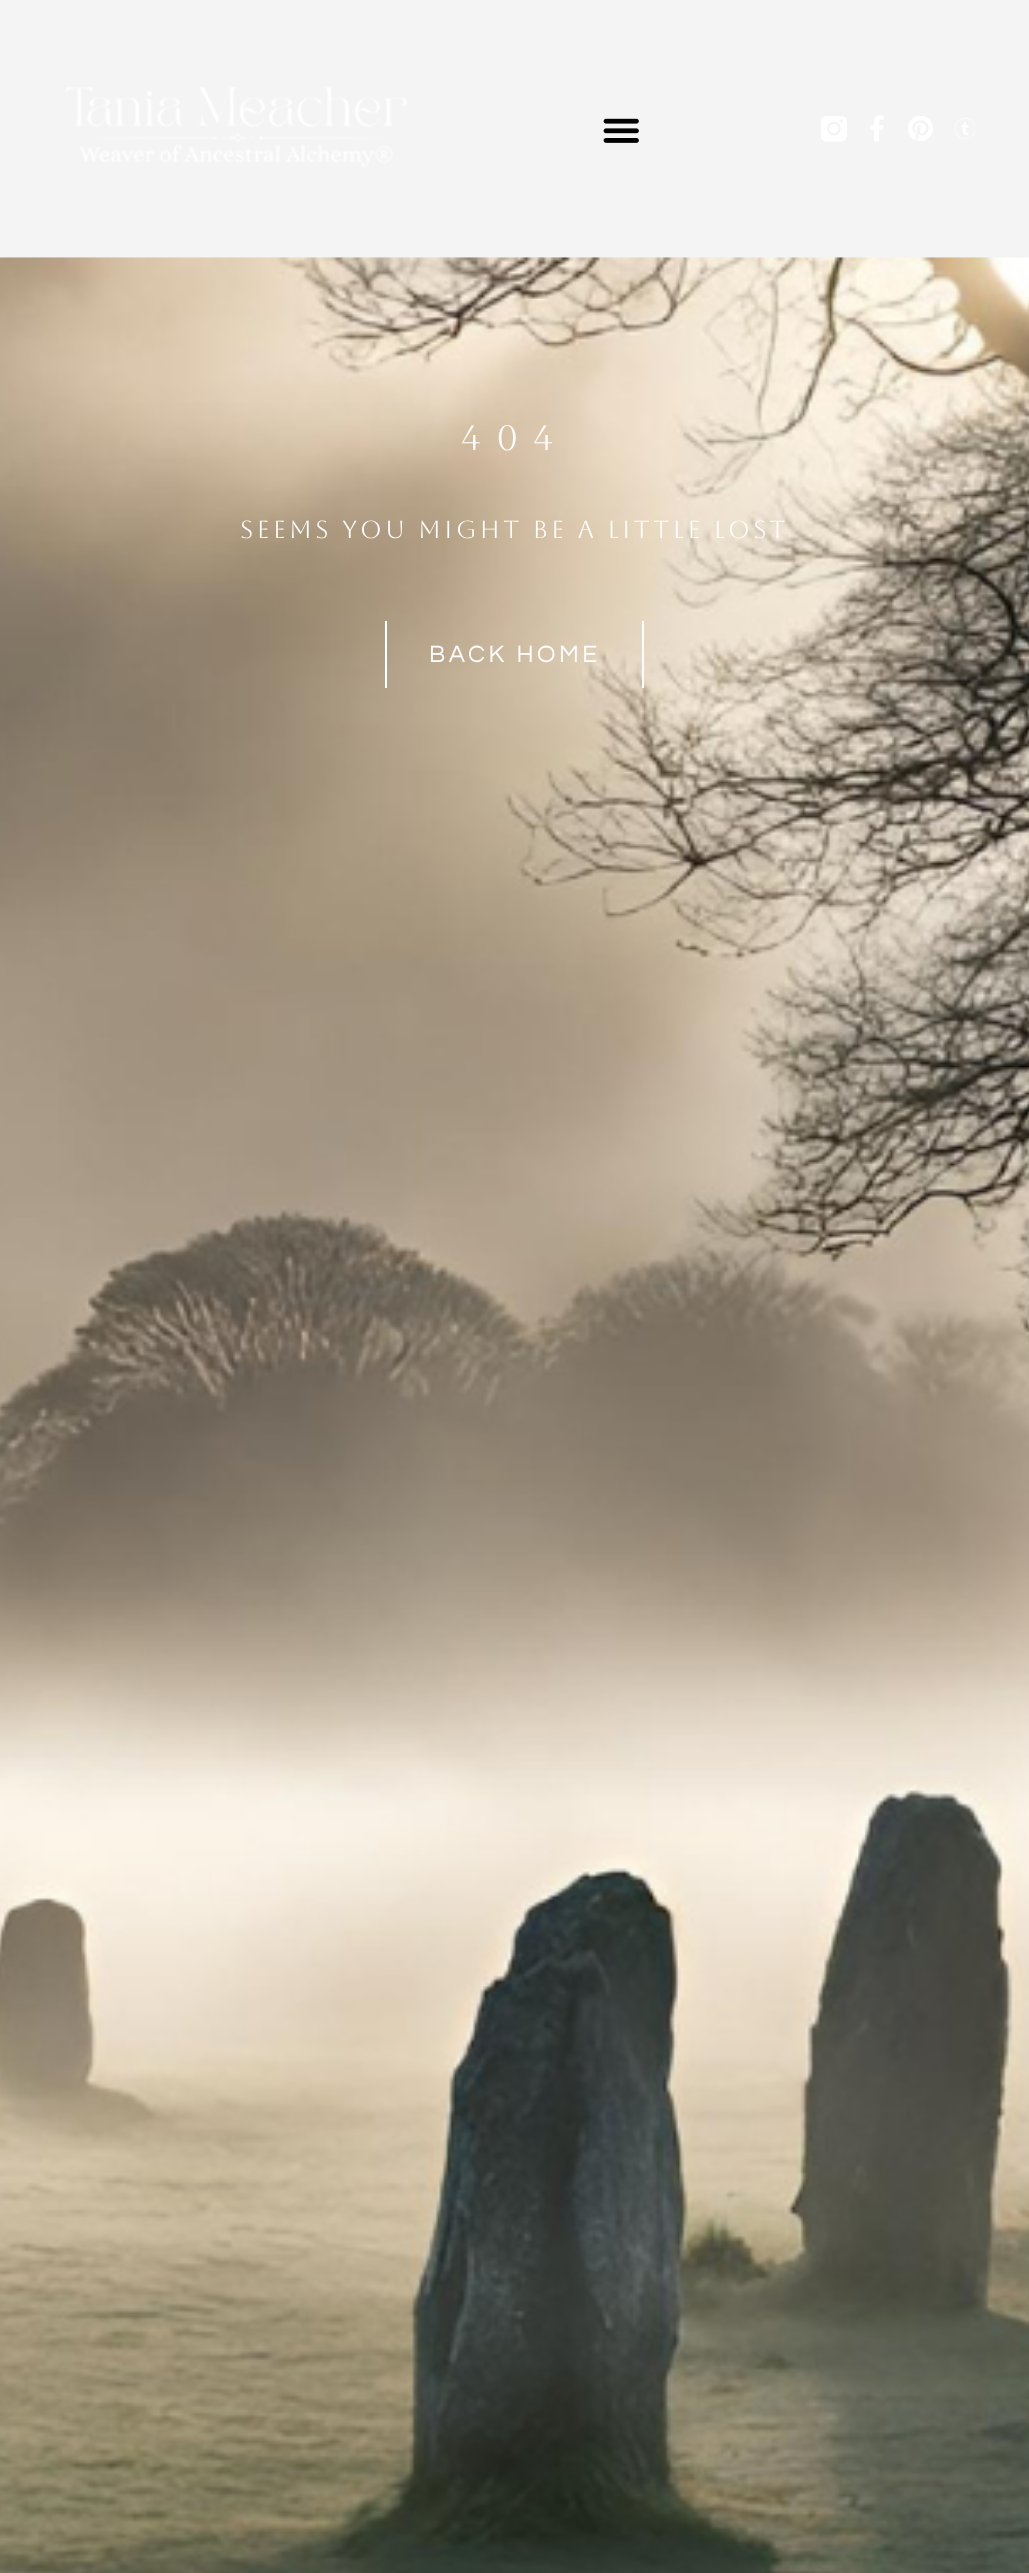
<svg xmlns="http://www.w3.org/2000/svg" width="1029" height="2573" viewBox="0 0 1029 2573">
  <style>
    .t1 { font: 35px Aboreto; letter-spacing: 15px; fill: #fff; }
    .t2 { font: 24.5px Aboreto; letter-spacing: 3.5px; fill: #fff; }
    .t3 { font: 24.5px Questrial; letter-spacing: 3.5px; fill: #fff; }
  </style>
  <rect width="100%" height="100%" fill="#f4f4f4"/>
  <image x="66" y="87" width="341" height="80" href="images/1.png"/>
  <image x="603" y="118" width="36" height="25" href="images/2.png"/>
  <image x="821" y="116" width="26" height="26" href="images/3.png"/>
  <image x="870" y="115" width="14" height="27" href="images/4.png"/>
  <image x="908" y="116" width="25" height="25" href="images/5.png"/>
  <image x="955" y="118" width="20" height="21" href="images/6.png"/>
  <image x="0" y="257" width="1029" height="2316" href="images/7.png"/>
  <text x="461" y="450" class="t1">404</text>
  <text x="240" y="538" class="t2">SEEMS YOU MIGHT BE A LITTLE LOST</text>
  <rect x="642" y="621" width="2" height="67" fill="#fff"/>
  <rect x="385" y="621" width="2" height="67" fill="#fff"/>
  <text x="429" y="662" class="t3">BACK HOME</text>
</svg>
